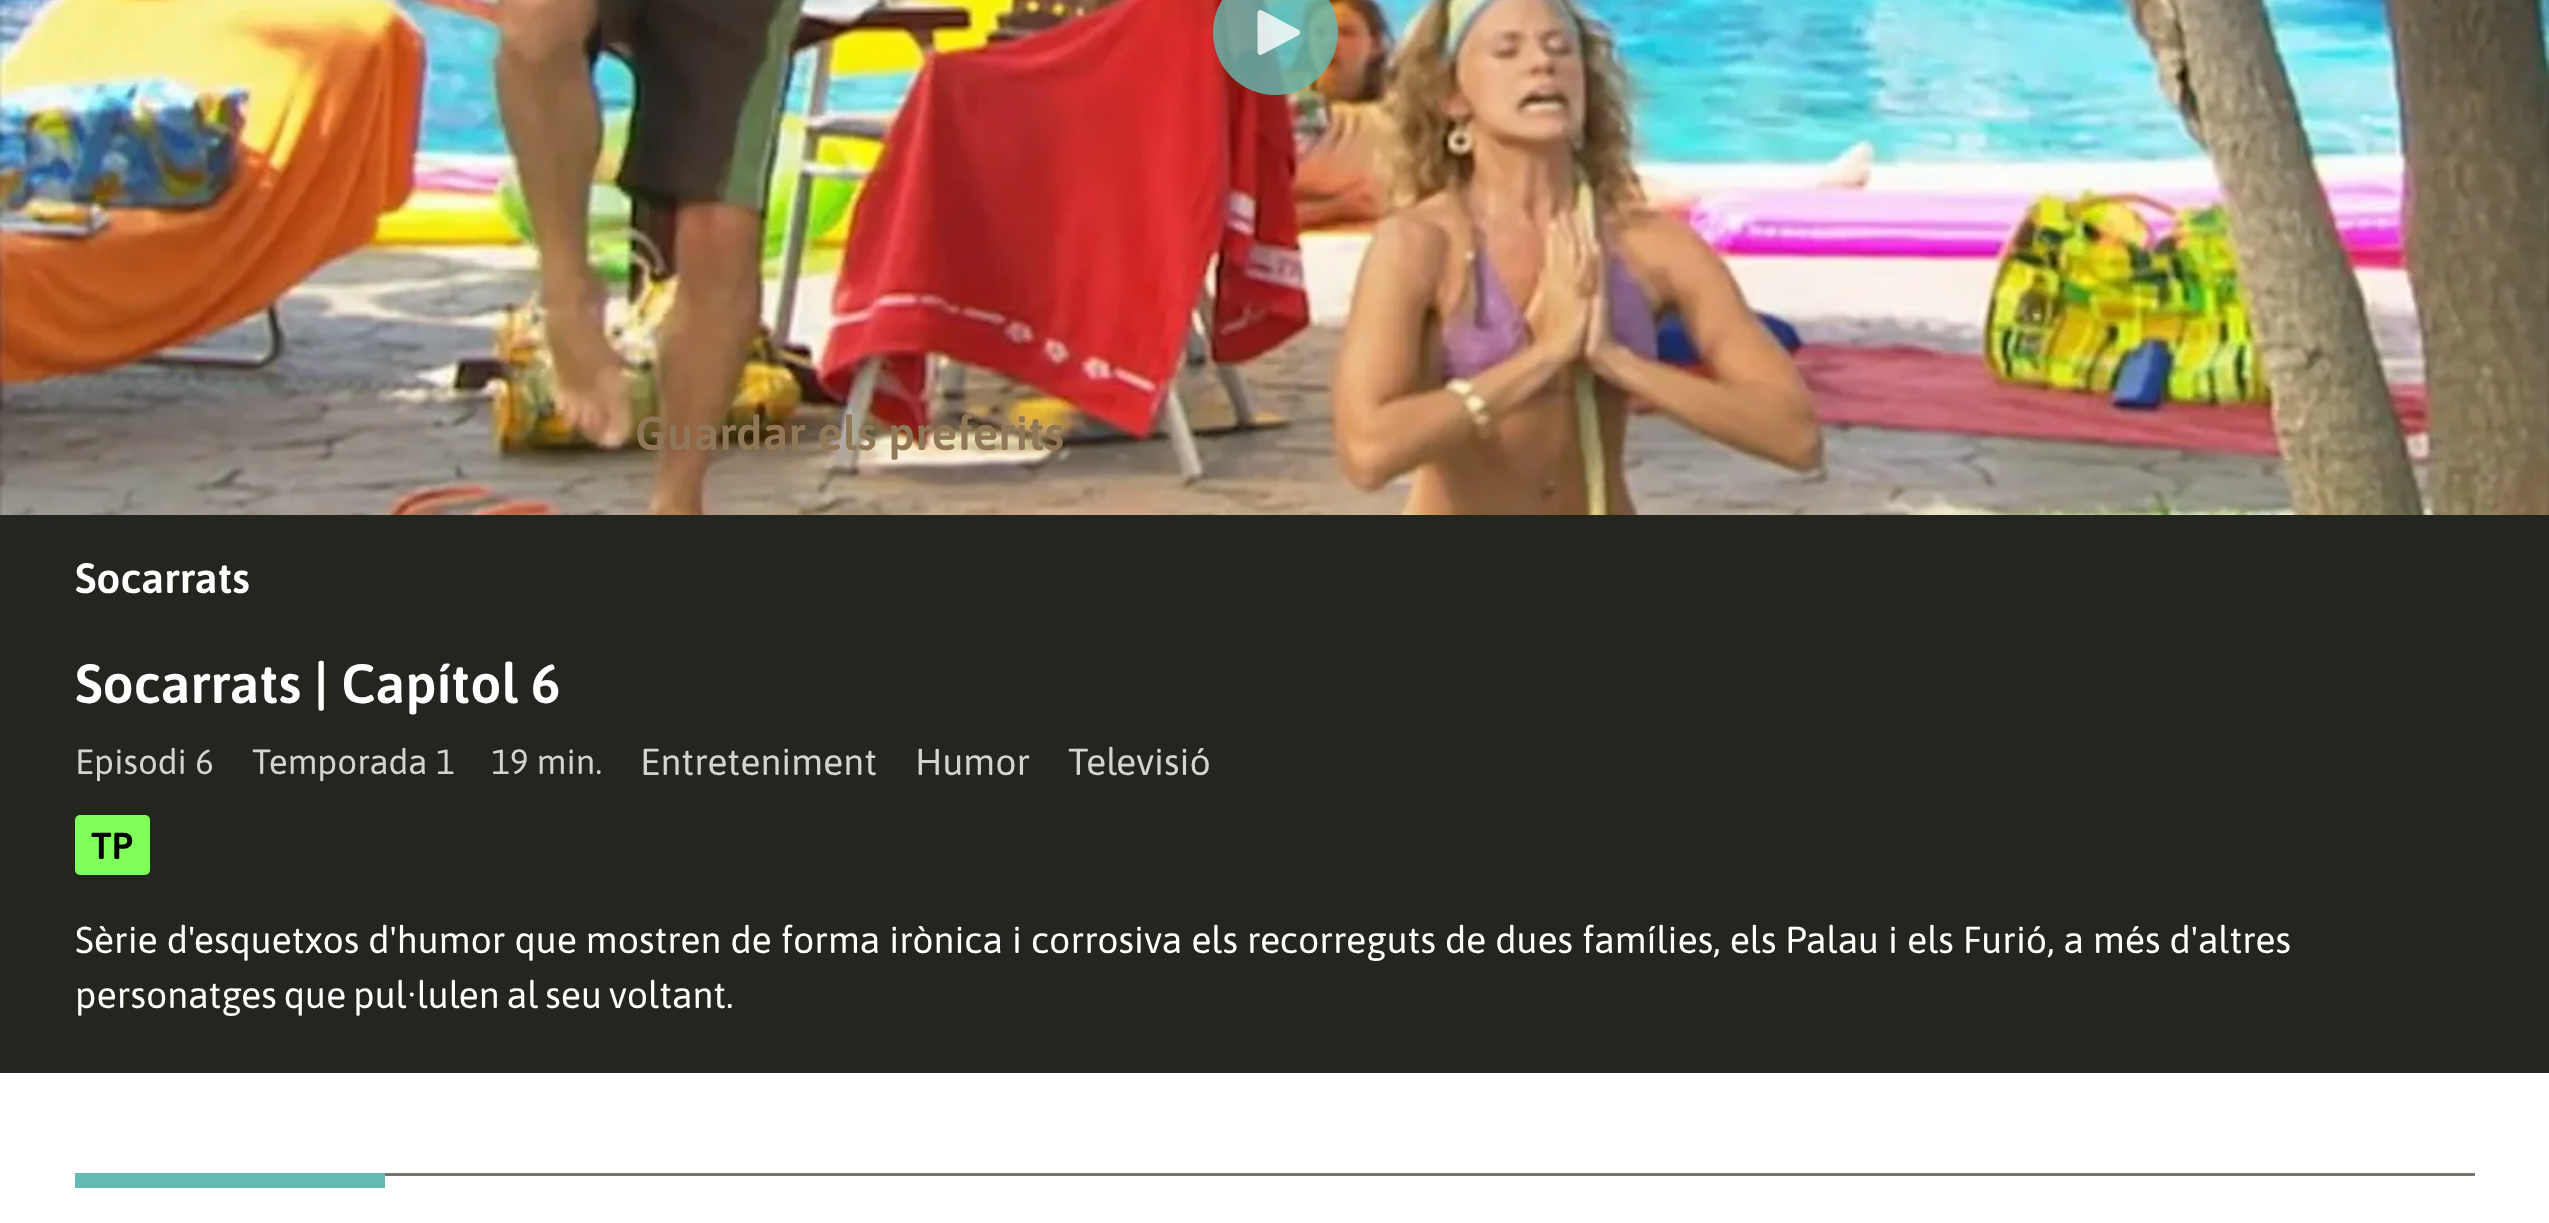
<svg xmlns="http://www.w3.org/2000/svg" width="2549" height="1223" viewBox="0 0 2549 1223">
  <style>
    .t1 { font: 600 47.5px Asap; fill: #907757; }
    .t2 { font: 600 42.5px Asap; fill: #fff; }
    .t3 { font: 600 55px Asap; fill: #fff; }
    .t4 { font: 35px Asap; fill: #d3d3d2; }
    .t5 { font: 37.5px Asap; fill: #d3d3d2; }
    .t6 { font: 600 37.5px Asap; fill: #000; }
    .t7 { font: 37.5px Asap; fill: #fff; }
  </style>
  <rect width="100%" height="100%" fill="#fff"/>
  <rect x="0" y="515" width="2549" height="558" fill="#23251f"/>
  <image x="0" y="0" width="2549" height="515" href="images/2.png"/>
  <circle cx="1275.5" cy="32.5" r="62.5" fill="#63bab2cc"/>
  <image x="1257" y="10" width="43" height="45" href="images/1.png"/>
  <text x="635" y="450" class="t1">Guardar els preferits</text>
  <text x="75" y="593" class="t2">Socarrats</text>
  <text x="75" y="703" class="t3">Socarrats | Capítol 6</text>
  <text x="75" y="774" class="t4">Episodi 6</text>
  <text x="252" y="774" class="t4">Temporada 1</text>
  <text x="491" y="774" class="t4">19 min.</text>
  <text x="640" y="775" class="t5">Entreteniment</text>
  <text x="915" y="775" class="t5">Humor</text>
  <text x="1068" y="775" class="t5">Televisió</text>
  <rect x="75" y="815" width="75" height="60" rx="5" fill="#81ff5b"/>
  <text x="91" y="859" class="t6">TP</text>
  <text x="75" y="953" class="t7">Sèrie d'esquetxos d'humor que mostren de forma irònica i corrosiva els recorreguts de dues famílies, els Palau i els Furió, a més d'altres</text>
  <text x="75" y="1008" word-spacing="-2" class="t7">personatges que pul·lulen al seu voltant.</text>
  <rect x="75" y="1173" width="310" height="15" fill="#63bab2"/>
  <rect x="385" y="1173" width="2090" height="3" fill="#76756f"/>
</svg>
